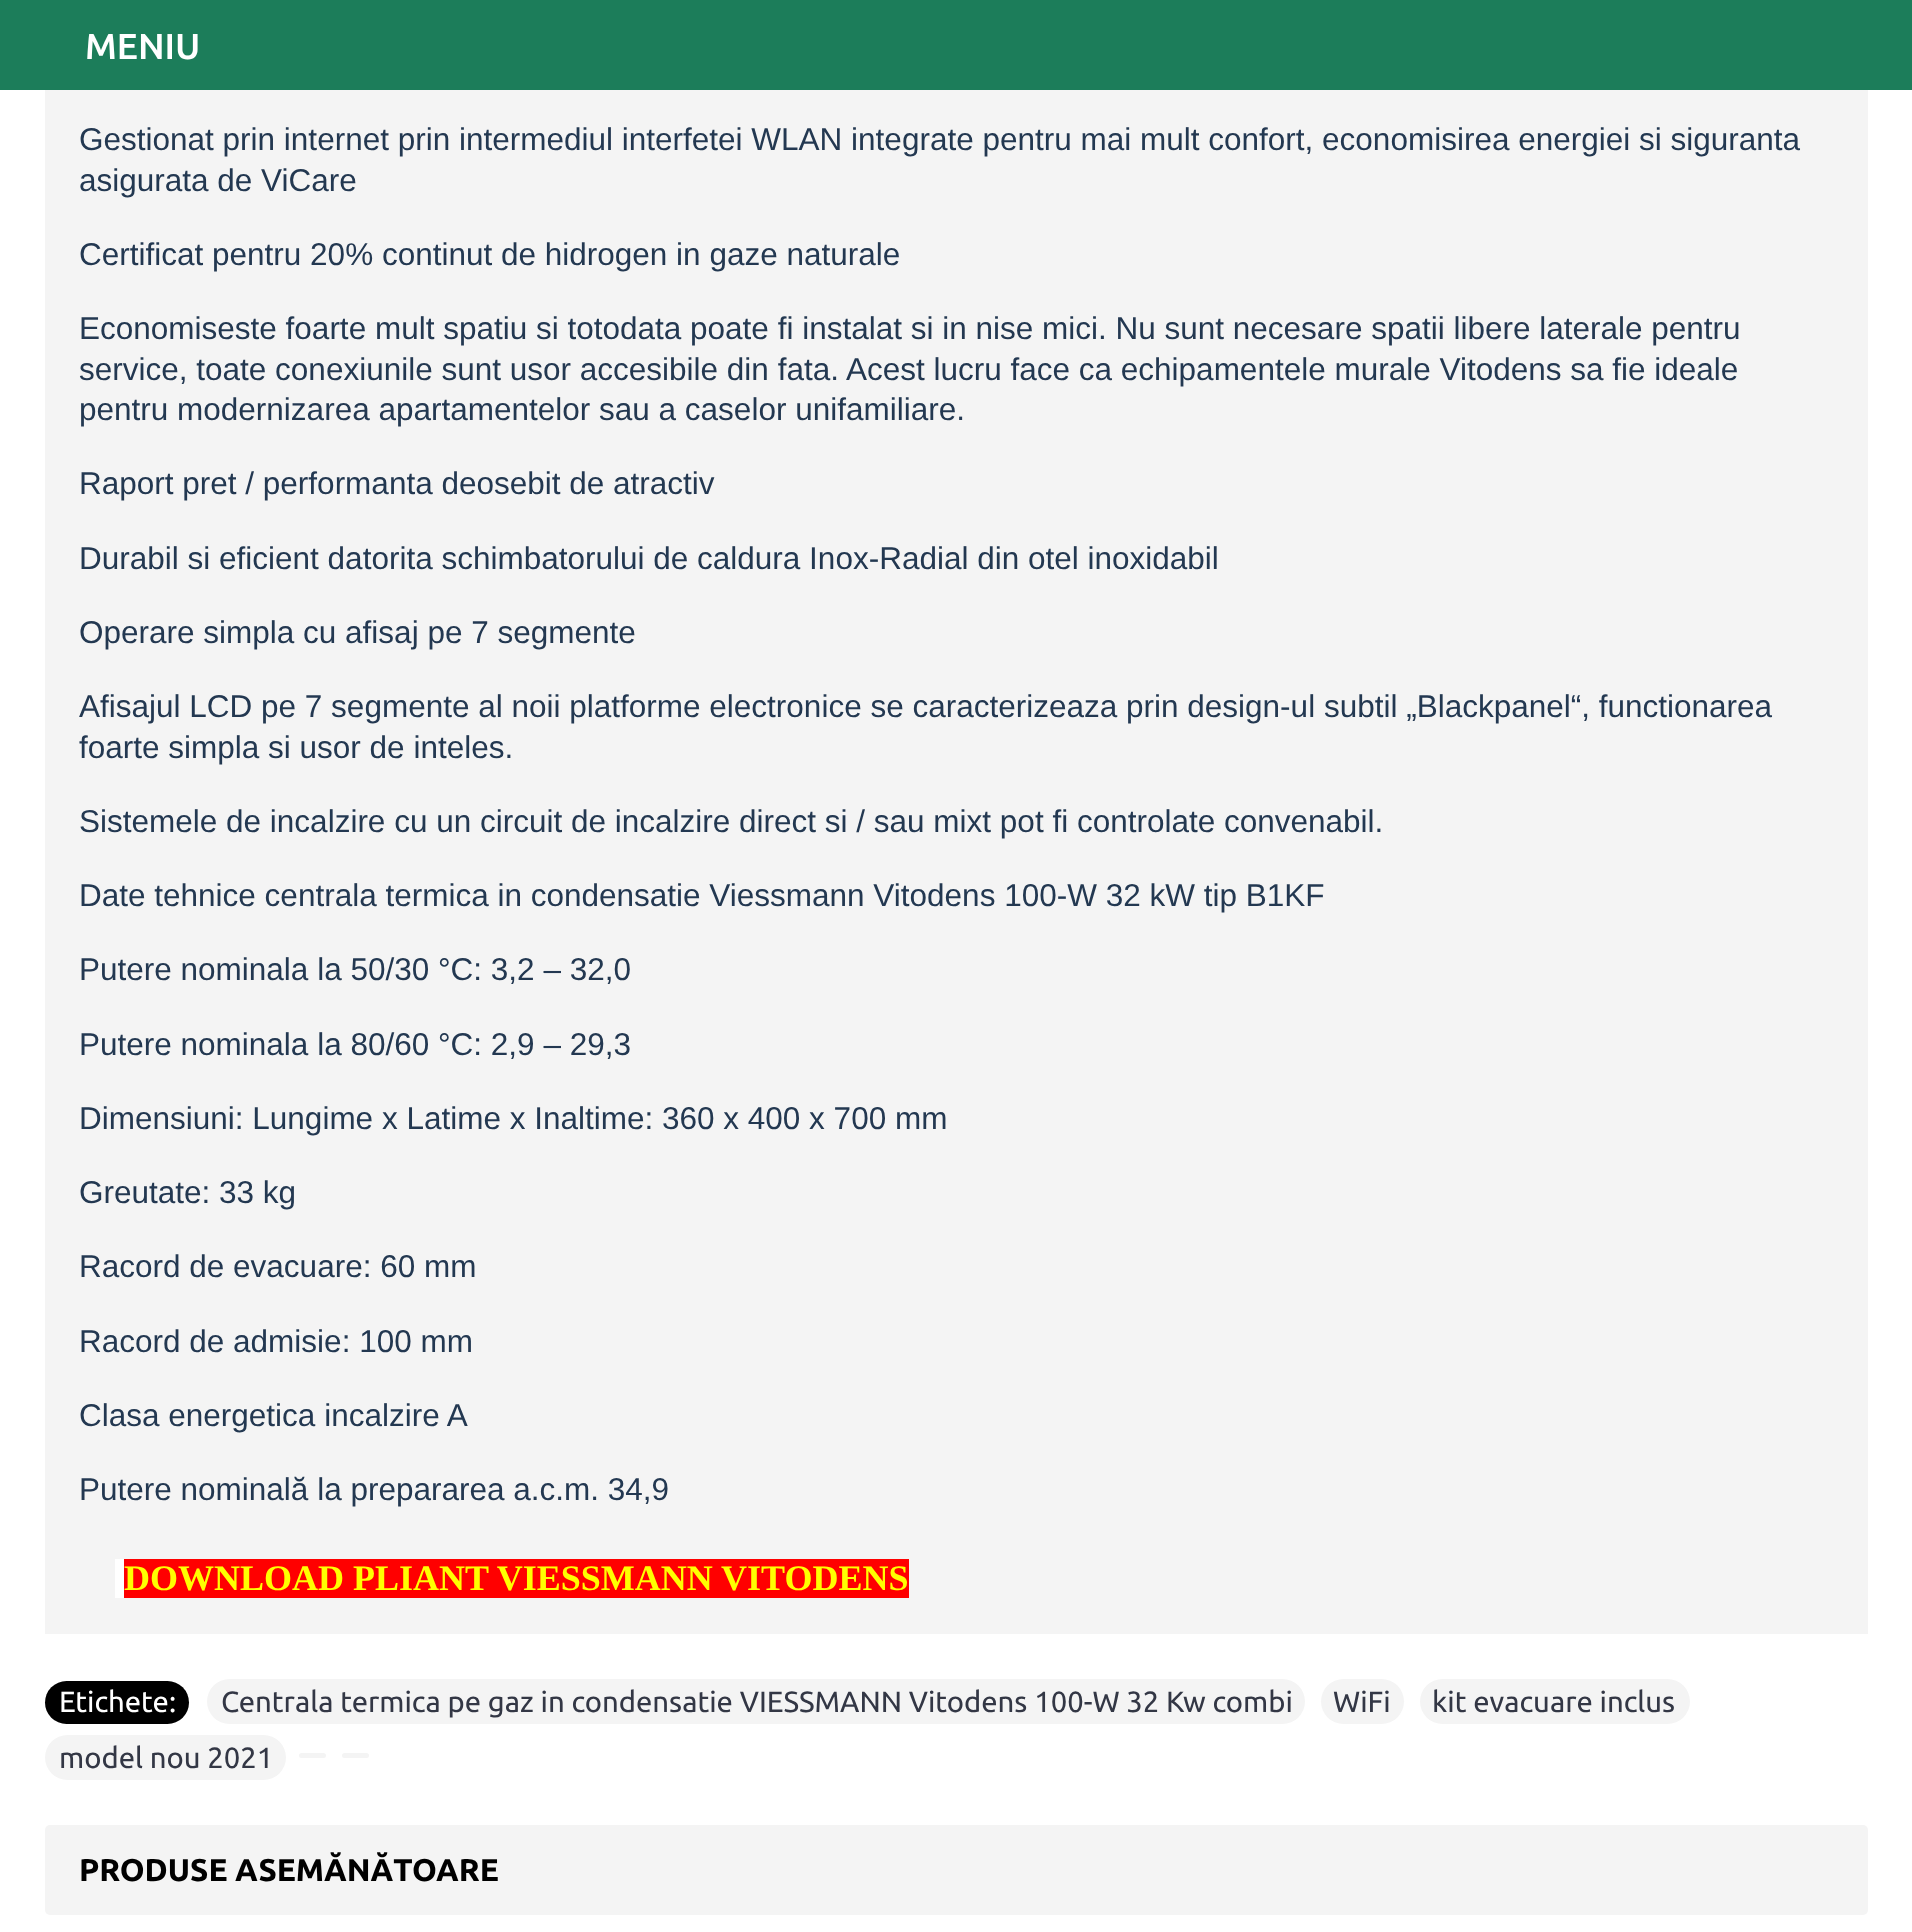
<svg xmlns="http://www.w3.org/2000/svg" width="1912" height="1932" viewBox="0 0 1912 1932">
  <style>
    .t1 { font: 500 36px Ubuntu; fill: #fff; }
    .t2 { font: 31.5px Liberation Sans; fill: #233851; }
    .t3 { font: bold 36px Liberation Serif; fill: #ff0; }
    .t4 { font: 29.25px Ubuntu; fill: #fff; }
    .t5 { font: 29.25px Ubuntu; fill: #333745; }
    .t6 { font: bold 31.5px Ubuntu; fill: #000; }
  </style>
  <rect width="100%" height="100%" fill="#fff"/>
  <rect x="0" y="0" width="1912" height="90" fill="#1c7d5a"/>
  <text x="85" y="59" class="t1">MENIU</text>
  <rect x="45" y="90" width="1823" height="1544" fill="#f4f4f4"/>
  <text x="79" y="150" class="t2">Gestionat prin internet prin intermediul interfetei WLAN integrate pentru mai mult confort, economisirea energiei si siguranta</text>
  <text x="79" y="191" class="t2">asigurata de ViCare</text>
  <text x="79" y="265" class="t2">Certificat pentru 20% continut de hidrogen in gaze naturale</text>
  <text x="79" y="339" class="t2">Economiseste foarte mult spatiu si totodata poate fi instalat si in nise mici. Nu sunt necesare spatii libere laterale pentru</text>
  <text x="79" y="380" class="t2">service, toate conexiunile sunt usor accesibile din fata. Acest lucru face ca echipamentele murale Vitodens sa fie ideale</text>
  <text x="79" y="420" class="t2">pentru modernizarea apartamentelor sau a caselor unifamiliare.</text>
  <text x="79" y="494" class="t2">Raport pret / performanta deosebit de atractiv</text>
  <text x="79" y="569" class="t2">Durabil si eficient datorita schimbatorului de caldura Inox-Radial din otel inoxidabil</text>
  <text x="79" y="643" class="t2">Operare simpla cu afisaj pe 7 segmente</text>
  <text x="79" y="717" class="t2">Afisajul LCD pe 7 segmente al noii platforme electronice se caracterizeaza prin design-ul subtil „Blackpanel“, functionarea</text>
  <text x="79" y="758" class="t2">foarte simpla si usor de inteles.</text>
  <text x="79" y="832" class="t2">Sistemele de incalzire cu un circuit de incalzire direct si / sau mixt pot fi controlate convenabil.</text>
  <text x="79" y="906" class="t2">Date tehnice centrala termica in condensatie Viessmann Vitodens 100-W 32 kW tip B1KF</text>
  <text x="79" y="980" class="t2">Putere nominala la 50/30 °C: 3,2 – 32,0</text>
  <text x="79" y="1055" class="t2">Putere nominala la 80/60 °C: 2,9 – 29,3</text>
  <text x="79" y="1129" class="t2">Dimensiuni: Lungime x Latime x Inaltime: 360 x 400 x 700 mm</text>
  <text x="79" y="1203" class="t2">Greutate: 33 kg</text>
  <text x="79" y="1277" class="t2">Racord de evacuare: 60 mm</text>
  <text x="79" y="1352" class="t2">Racord de admisie: 100 mm</text>
  <text x="79" y="1426" class="t2">Clasa energetica incalzire A</text>
  <text x="79" y="1500" class="t2">Putere nominală la prepararea a.c.m. 34,9</text>
  <rect x="124" y="1559" width="785" height="39" fill="#f00"/>
  <text x="124" y="1590" class="t3">DOWNLOAD PLIANT VIESSMANN VITODENS</text>
  <rect x="115" y="1559" width="9" height="39" fill="#fff"/>
  <rect x="45" y="1681" width="144" height="43" rx="21.5" fill="#000"/>
  <text x="59" y="1712" class="t4">Etichete:</text>
  <rect x="207" y="1679" width="1098" height="45" rx="22.5" fill="#f4f4f4"/>
  <text x="221" y="1712" class="t5">Centrala termica pe gaz in condensatie VIESSMANN Vitodens 100-W 32 Kw combi</text>
  <rect x="1321" y="1679" width="83" height="45" rx="22.5" fill="#f4f4f4"/>
  <text x="1333" y="1712" class="t5">WiFi</text>
  <rect x="1420" y="1679" width="270" height="45" rx="22.5" fill="#f4f4f4"/>
  <text x="1432" y="1712" class="t5">kit evacuare inclus</text>
  <rect x="45" y="1735" width="241" height="45" rx="22.5" fill="#f4f4f4"/>
  <text x="59" y="1768" class="t5">model nou 2021</text>
  <rect x="299" y="1753" width="27" height="5" rx="2.5" fill="#f4f4f4"/>
  <rect x="342" y="1753" width="27" height="5" rx="2.5" fill="#f4f4f4"/>
  <rect x="45" y="1825" width="1823" height="90" rx="5" fill="#f4f4f4"/>
  <text x="79" y="1881" class="t6">PRODUSE ASEMĂNĂTOARE</text>
</svg>
